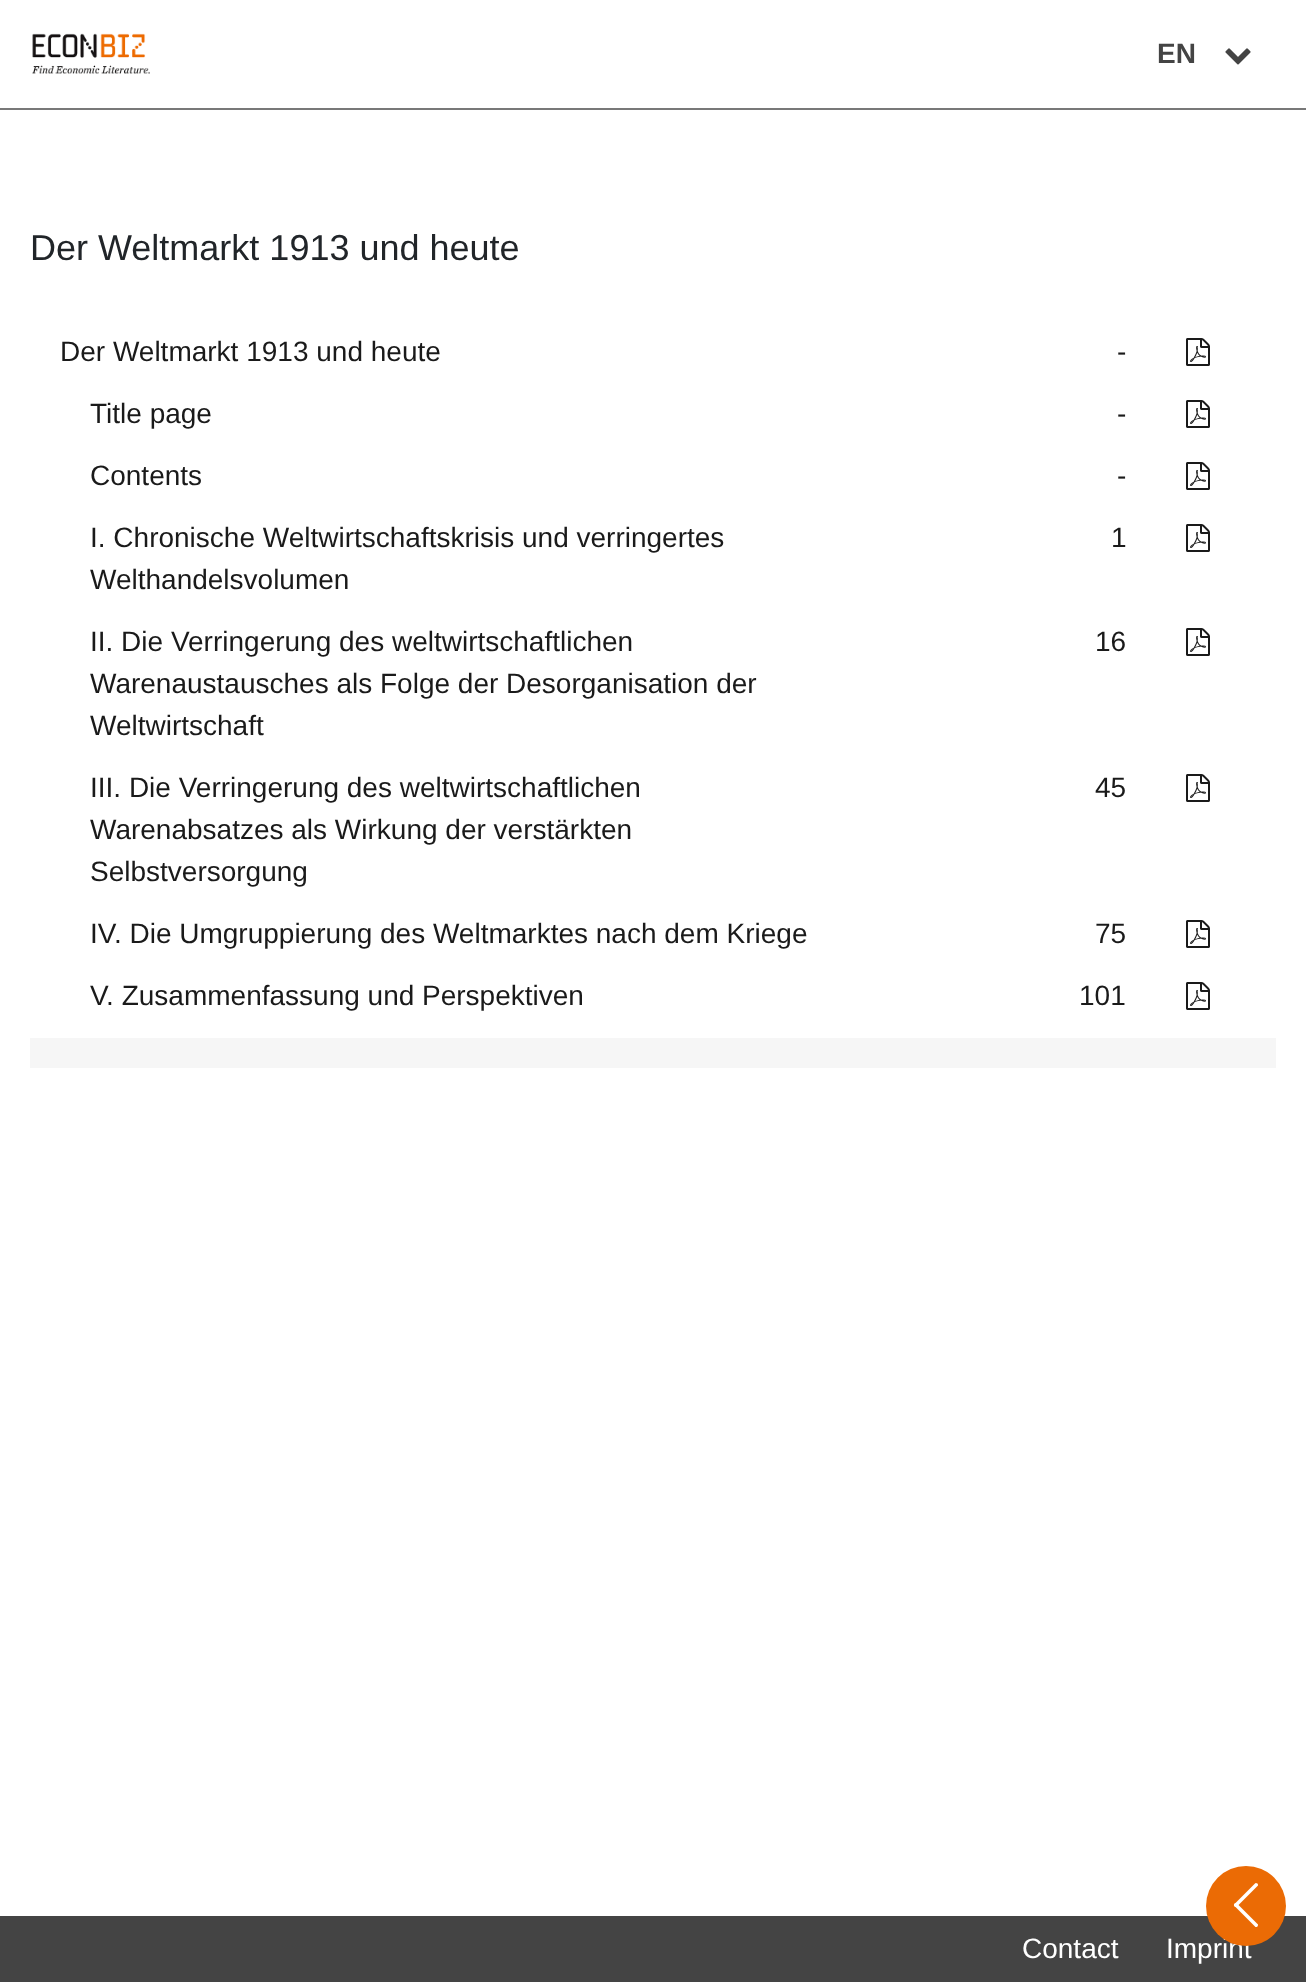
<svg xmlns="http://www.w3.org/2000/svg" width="1306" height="1982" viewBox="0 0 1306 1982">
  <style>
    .t1 { font: bold 28px Liberation Sans; fill: #444; }
    .t2 { font: 36px Liberation Sans; fill: #212529; }
    .t3 { font: 28px Liberation Sans; fill: #1a1a1a; }
    .t4 { font: 28px Liberation Sans; fill: #fff; }
  </style>
  <rect width="100%" height="100%" fill="#fff"/>
  <rect x="0" y="108" width="1306" height="2" fill="#787878"/>
  <image x="32" y="33" width="118" height="41" href="images/1.png"/>
  <text x="1157" y="63" class="t1">EN</text>
  <image x="1225" y="48" width="26" height="17" href="images/2.png"/>
  <rect x="30" y="1038" width="1246" height="30" fill="#f6f6f6"/>
  <text x="30" y="260" class="t2">Der Weltmarkt 1913 und heute</text>
  <text x="60" y="361" class="t3">Der Weltmarkt 1913 und heute</text>
  <text x="1117" y="361" class="t3">-</text>
  <image x="1186" y="338" width="24" height="28" href="images/3.png"/>
  <text x="90" y="423" class="t3">Title page</text>
  <text x="1117" y="423" class="t3">-</text>
  <image x="1186" y="400" width="24" height="28" href="images/3.png"/>
  <text x="90" y="485" class="t3">Contents</text>
  <text x="1117" y="485" class="t3">-</text>
  <image x="1186" y="462" width="24" height="28" href="images/3.png"/>
  <text x="90" y="547" class="t3">I. Chronische Weltwirtschaftskrisis und verringertes</text>
  <text x="90" y="589" class="t3">Welthandelsvolumen</text>
  <text x="1111" y="547" class="t3">1</text>
  <image x="1186" y="524" width="24" height="28" href="images/3.png"/>
  <text x="90" y="651" class="t3">II. Die Verringerung des weltwirtschaftlichen</text>
  <text x="90" y="693" class="t3">Warenaustausches als Folge der Desorganisation der</text>
  <text x="90" y="735" class="t3">Weltwirtschaft</text>
  <text x="1095" y="651" class="t3">16</text>
  <image x="1186" y="628" width="24" height="28" href="images/3.png"/>
  <text x="90" y="797" class="t3">III. Die Verringerung des weltwirtschaftlichen</text>
  <text x="90" y="839" class="t3">Warenabsatzes als Wirkung der verstärkten</text>
  <text x="90" y="881" class="t3">Selbstversorgung</text>
  <text x="1095" y="797" class="t3">45</text>
  <image x="1186" y="774" width="24" height="28" href="images/3.png"/>
  <text x="90" y="943" class="t3">IV. Die Umgruppierung des Weltmarktes nach dem Kriege</text>
  <text x="1095" y="943" class="t3">75</text>
  <image x="1186" y="920" width="24" height="28" href="images/3.png"/>
  <text x="90" y="1005" class="t3">V. Zusammenfassung und Perspektiven</text>
  <text x="1079" y="1005" class="t3">101</text>
  <image x="1186" y="982" width="24" height="28" href="images/3.png"/>
  <rect x="0" y="1916" width="1306" height="66" fill="#444"/>
  <text x="1166" y="1958" class="t4">Imprint</text>
  <circle cx="1246" cy="1906" r="40" fill="#eb6b05"/>
  <path d="M1257.5 1886L1237 1906.5C1236.5 1907.5 1235.5 1907 1234.5 1906.5C1234 1905.5 1233.5 1904.5 1234.5 1904L1255 1883.5C1255.5 1882.5 1256.5 1883 1257.5 1883.5C1258 1884.5 1258.5 1885.5 1257.5 1886Z" fill="#fff"/>
  <path d="M1237 1903.5L1257.5 1924C1258.5 1924.5 1258 1925.5 1257.5 1926.5C1256.5 1927 1255.5 1927.5 1255 1926.5L1234.5 1906C1233.5 1905.5 1234 1904.5 1234.5 1903.5C1235.5 1903 1236.5 1902.5 1237 1903.5Z" fill="#fff"/>
  <text x="1022" y="1958" class="t4">Contact</text>
</svg>
